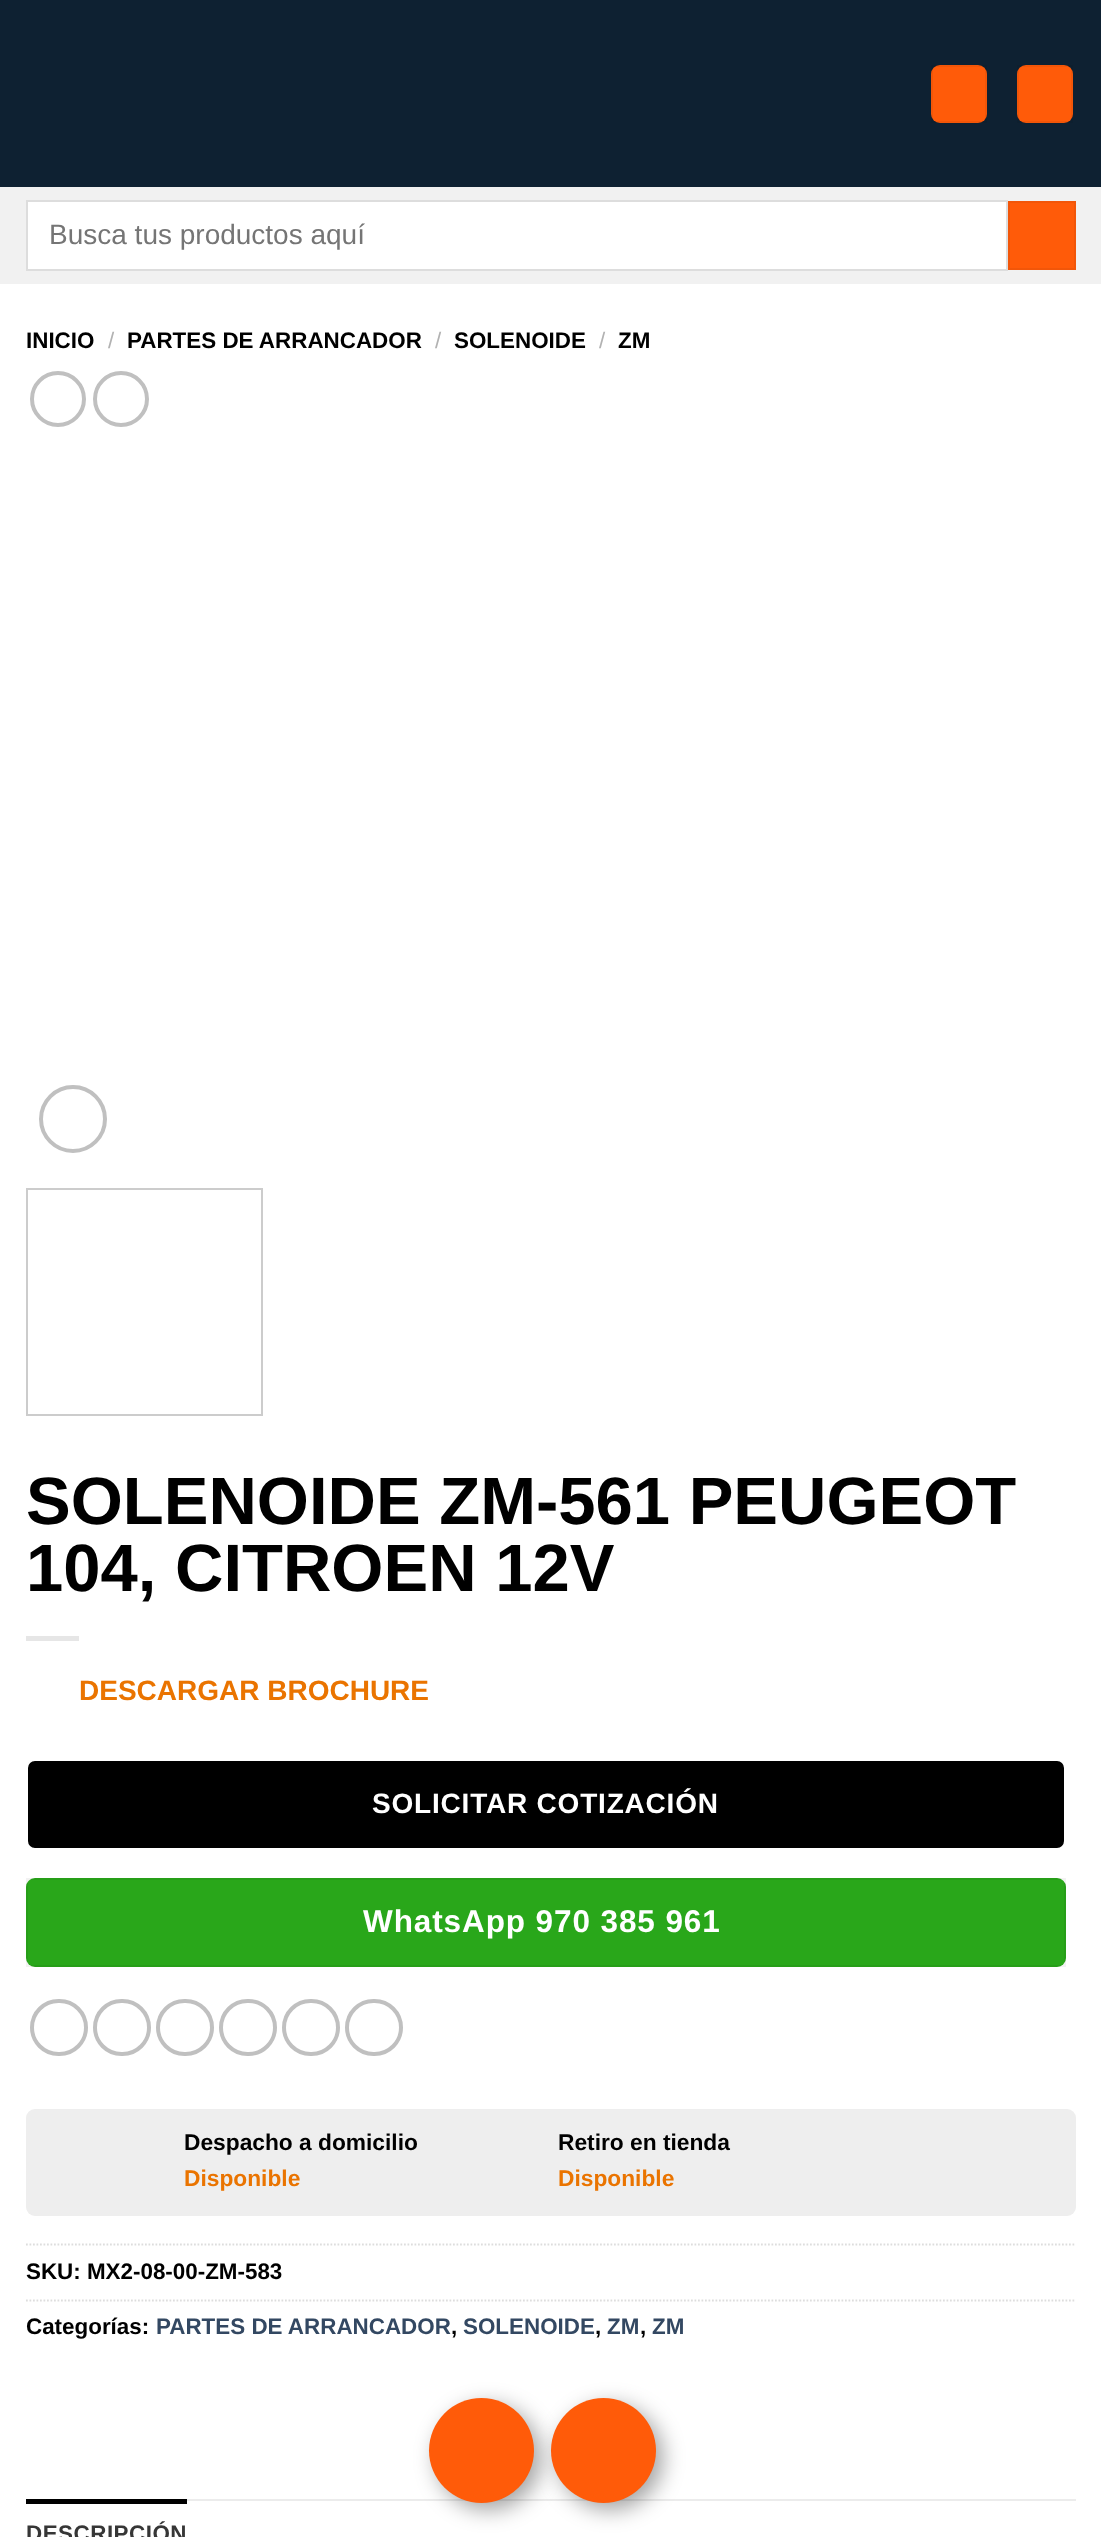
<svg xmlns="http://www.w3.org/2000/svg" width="1101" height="2537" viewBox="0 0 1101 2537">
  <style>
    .t1 { font: 28px Liberation Sans; fill: #757575; }
    .t2 { font: bold 22.4px Liberation Sans; fill: #000; }
    .t3 { font: 22.4px Liberation Sans; fill: #b2b2b2; }
    .t4 { font: bold 67px Liberation Sans; fill: #000; }
    .t5 { font: bold 28px Liberation Sans; fill: #ea7400; }
    .t6 { font: bold 28px Liberation Sans; letter-spacing: 0.8px; fill: #fff; }
    .t7 { font: bold 31.5px Liberation Sans; letter-spacing: 0.9px; fill: #fff; }
    .t8 { font: bold 22.75px Liberation Sans; fill: #000; }
    .t9 { font: bold 22.75px Liberation Sans; fill: #ea7400; }
    .t10 { font: bold 22.4px Liberation Sans; fill: #334862; }
    .t11 { font: bold 22.4px Liberation Sans; letter-spacing: 0.5px; fill: #363636; }
  </style>
  <rect width="100%" height="100%" fill="#fff"/>
  <rect x="0" y="0" width="1101" height="187" fill="#0e2132"/>
  <rect x="931" y="65" width="56" height="58" rx="9" fill="#ff5b09"/>
  <rect x="932" y="66" width="54" height="56" fill="none" stroke="#0000000d" stroke-width="2"/>
  <rect x="1017" y="65" width="56" height="58" rx="9" fill="#ff5b09"/>
  <rect x="1018" y="66" width="54" height="56" fill="none" stroke="#0000000d" stroke-width="2"/>
  <rect x="0" y="187" width="1101" height="97" fill="#f1f1f1"/>
  <rect x="27" y="201" width="980" height="69" fill="#fff" stroke="#ddd" stroke-width="2"/>
  <text x="49" y="244" class="t1">Busca tus productos aquí</text>
  <rect x="1009" y="202" width="66" height="67" fill="#ff5b09" stroke="#f25609" stroke-width="2"/>
  <text x="26" y="348" class="t2">INICIO</text>
  <text x="108" y="348" class="t3">/</text>
  <text x="127" y="348" class="t2">PARTES DE ARRANCADOR</text>
  <text x="435" y="348" class="t3">/</text>
  <text x="454" y="348" class="t2">SOLENOIDE</text>
  <text x="599" y="348" class="t3">/</text>
  <text x="618" y="348" class="t2">ZM</text>
  <circle cx="58" cy="399" r="26" fill="none" stroke="#c0c0c0" stroke-width="4"/>
  <circle cx="121" cy="399" r="26" fill="none" stroke="#c0c0c0" stroke-width="4"/>
  <circle cx="73" cy="1119" r="32" fill="none" stroke="#c0c0c0" stroke-width="4"/>
  <rect x="27" y="1189" width="235" height="226" fill="none" stroke="#ccc" stroke-width="2"/>
  <text x="26" y="1524" class="t4">SOLENOIDE ZM-561 PEUGEOT</text>
  <text x="26" y="1591" class="t4">104, CITROEN 12V</text>
  <rect x="26" y="1636" width="53" height="5" fill="#e6e6e6"/>
  <text x="79" y="1700" class="t5">DESCARGAR BROCHURE</text>
  <rect x="27" y="1760" width="1038" height="89" rx="8" fill="#000" stroke="#fff" stroke-width="2"/>
  <text x="372" y="1813" class="t6">SOLICITAR COTIZACIÓN</text>
  <rect x="26" y="1878" width="1040" height="89" rx="9" fill="#29a71a"/>
  <rect x="27" y="1879" width="1038" height="87" fill="none" stroke="#0000000d" stroke-width="2"/>
  <text x="363" y="1932" class="t7">WhatsApp 970 385 961</text>
  <rect x="32" y="2001" width="54" height="53" rx="26.5" fill="none" stroke="#c0c0c0" stroke-width="4"/>
  <rect x="95" y="2001" width="54" height="53" rx="26.5" fill="none" stroke="#c0c0c0" stroke-width="4"/>
  <rect x="158" y="2001" width="54" height="53" rx="26.5" fill="none" stroke="#c0c0c0" stroke-width="4"/>
  <rect x="221" y="2001" width="54" height="53" rx="26.5" fill="none" stroke="#c0c0c0" stroke-width="4"/>
  <rect x="284" y="2001" width="54" height="53" rx="26.5" fill="none" stroke="#c0c0c0" stroke-width="4"/>
  <rect x="347" y="2001" width="54" height="53" rx="26.5" fill="none" stroke="#c0c0c0" stroke-width="4"/>
  <rect x="26" y="2109" width="1050" height="107" rx="9" fill="#eee"/>
  <text x="184" y="2150" class="t8">Despacho a domicilio</text>
  <text x="184" y="2186" class="t9">Disponible</text>
  <text x="558" y="2150" class="t8">Retiro en tienda</text>
  <text x="558" y="2186" class="t9">Disponible</text>
  <path d="M26 2244.5H1076" fill="none" stroke="#ddd" stroke-width="1.8" stroke-dasharray="1.75 1.75"/>
  <text x="26" y="2279" class="t2">SKU: MX2-08-00-ZM-583</text>
  <path d="M26 2300.5H1076" fill="none" stroke="#ddd" stroke-width="1.8" stroke-dasharray="1.75 1.75"/>
  <text x="26" y="2334" class="t2">Categorías:</text>
  <text x="156" y="2334" class="t10">PARTES DE ARRANCADOR</text>
  <text x="451" y="2334" class="t2">,</text>
  <text x="463" y="2334" class="t10">SOLENOIDE</text>
  <text x="595" y="2334" class="t2">,</text>
  <text x="607" y="2334" class="t10">ZM</text>
  <text x="640" y="2334" class="t2">,</text>
  <text x="652" y="2334" class="t10">ZM</text>
  <rect x="187" y="2499" width="889" height="2" fill="#ececec"/>
  <rect x="26" y="2499" width="161" height="5" fill="#000"/>
  <text x="26" y="2541" class="t11">DESCRIPCIÓN</text>
  <rect x="436" y="2405" width="105" height="105" rx="52.5" fill="#0000005c" filter="blur(10.5px)"/>
  <circle cx="481.5" cy="2450.5" r="52.5" fill="#ff5b09"/>
  <rect x="558" y="2405" width="105" height="105" rx="52.5" fill="#0000005c" filter="blur(10.5px)"/>
  <circle cx="603.5" cy="2450.5" r="52.5" fill="#ff5b09"/>
</svg>
